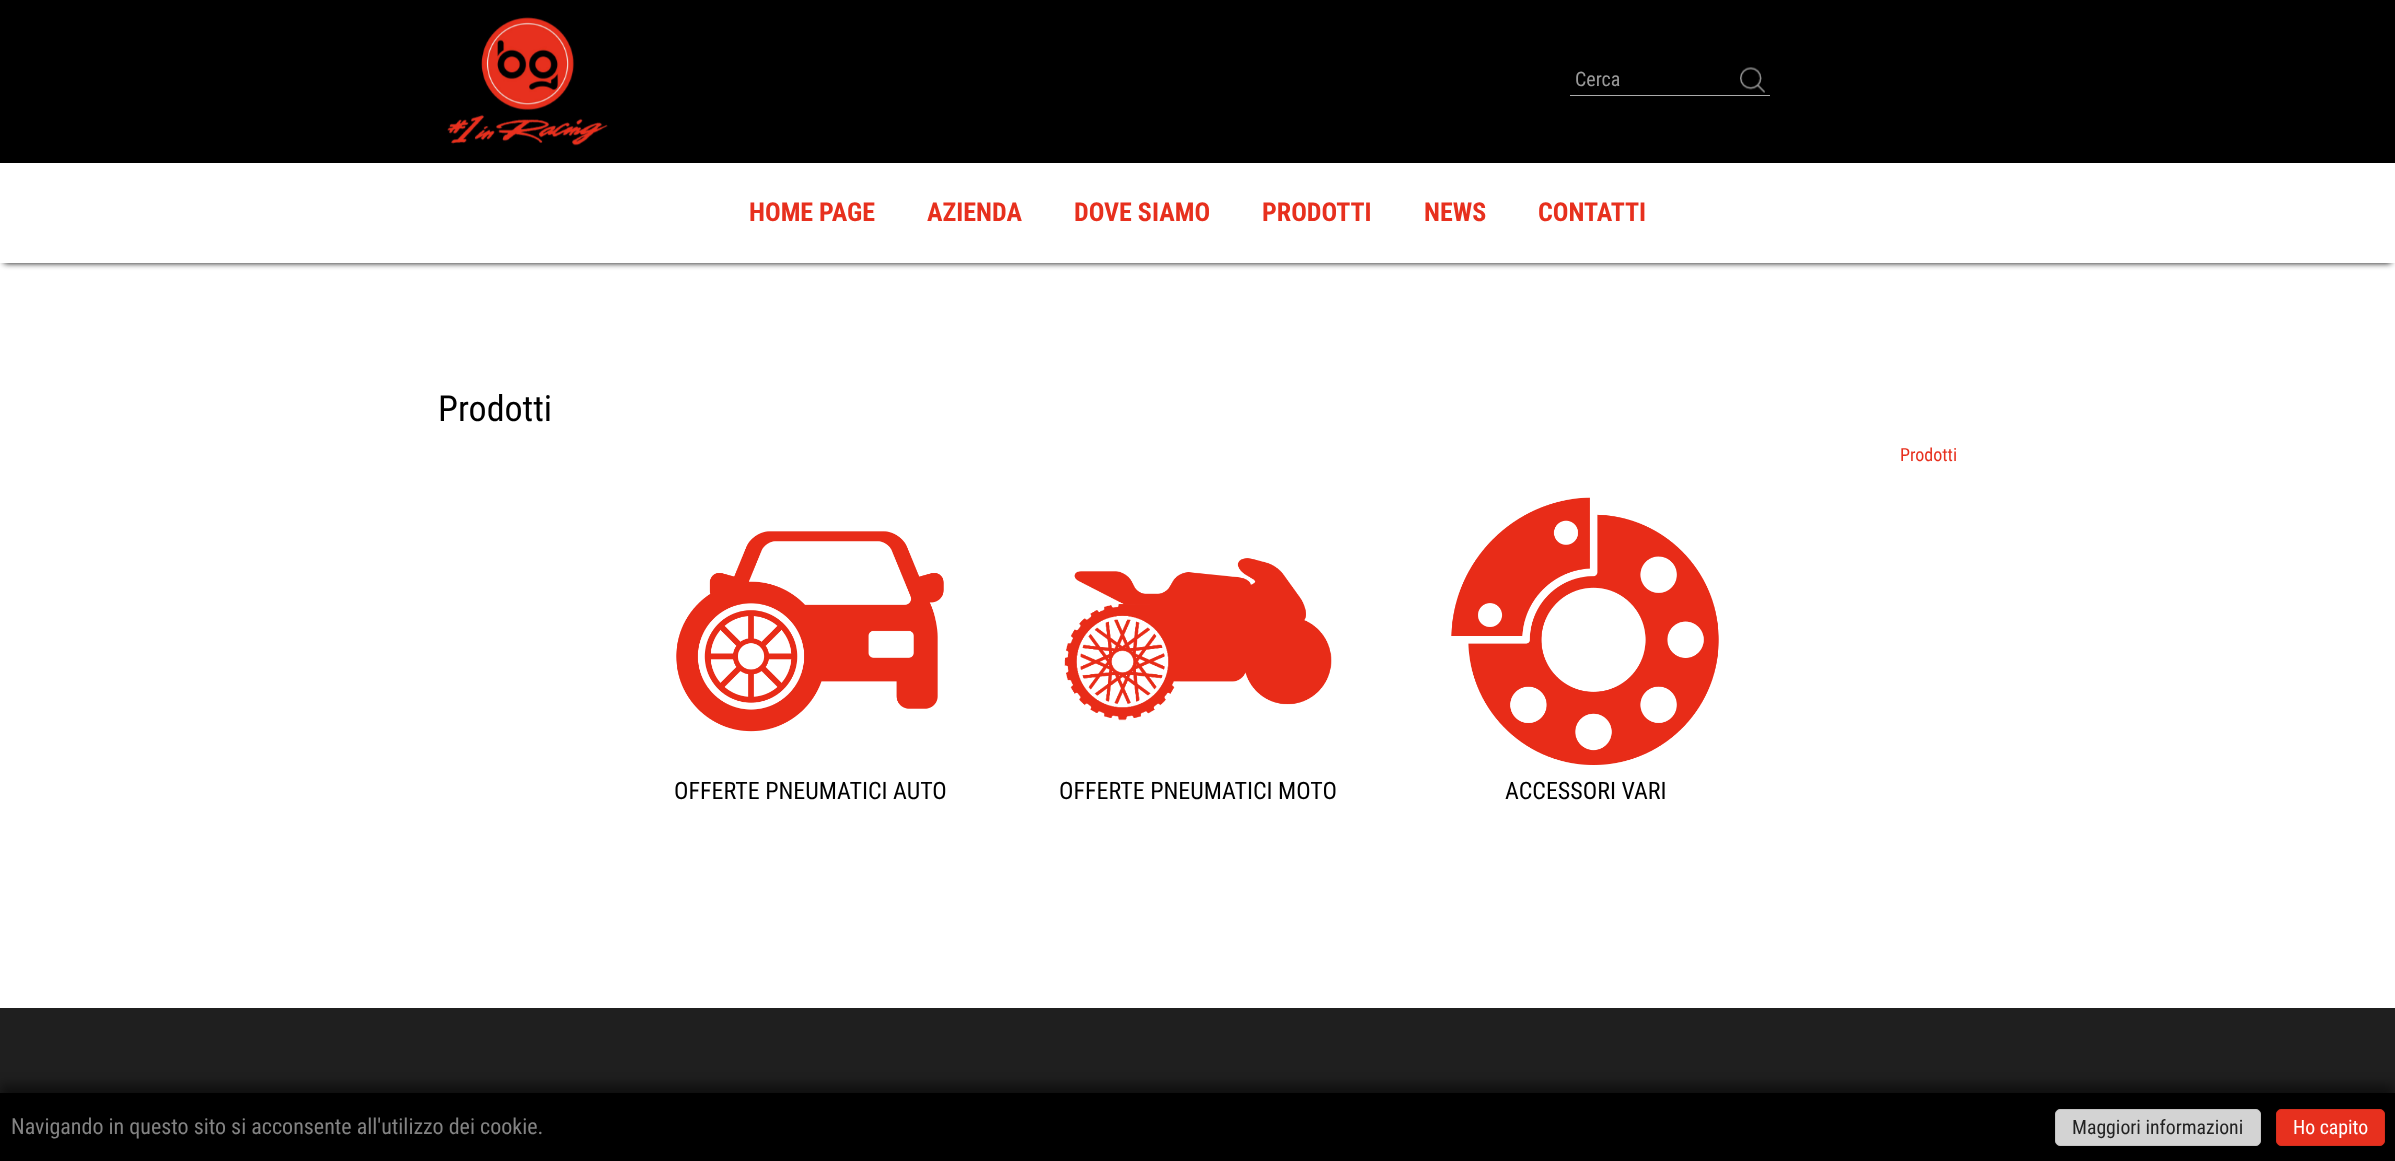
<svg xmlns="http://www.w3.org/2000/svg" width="2395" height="1161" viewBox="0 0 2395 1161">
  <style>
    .t1 { font: 20px Roboto Condensed; fill: #999; }
    .t2 { font: bold 26px Roboto Condensed; fill: #e7301e; }
    .t3 { font: 36px Roboto Condensed; fill: #000; }
    .t4 { font: 18px Roboto Condensed; fill: #e7301e; }
    .t5 { font: 24px Roboto Condensed; fill: #000; }
    .t6 { font: 22px Roboto Condensed; fill: #838383; }
    .t7 { font: 19.75px Roboto Condensed; fill: #222; }
    .t8 { font: 19.75px Roboto Condensed; fill: #fff; }
  </style>
  <rect width="100%" height="100%" fill="#fff"/>
  <rect x="4" y="8" width="2387" height="255" fill="#000" filter="blur(3px)"/>
  <rect x="0" y="0" width="2395" height="163" fill="#000"/>
  <image x="447" y="17" width="161" height="129" href="images/1.png"/>
  <rect x="0" y="163" width="2395" height="100" fill="#fff"/>
  <rect x="1570" y="95" width="200" height="1" fill="#aaa"/>
  <text x="1575" y="86" class="t1">Cerca</text>
  <image x="1740" y="67" width="25" height="26" href="images/2.png"/>
  <text x="749" y="221" class="t2">HOME PAGE</text>
  <text x="927" y="221" class="t2">AZIENDA</text>
  <text x="1074" y="221" class="t2">DOVE SIAMO</text>
  <text x="1262" y="221" class="t2">PRODOTTI</text>
  <text x="1424" y="221" class="t2">NEWS</text>
  <text x="1538" y="221" class="t2">CONTATTI</text>
  <text x="438" y="421" class="t3">Prodotti</text>
  <text x="1900" y="461" class="t4">Prodotti</text>
  <image x="676" y="531" width="268" height="201" href="images/3.png"/>
  <text x="674" y="799" class="t5">OFFERTE PNEUMATICI AUTO</text>
  <image x="1064" y="558" width="268" height="163" href="images/4.png"/>
  <text x="1059" y="799" class="t5">OFFERTE PNEUMATICI MOTO</text>
  <image x="1451" y="497" width="268" height="268" href="images/5.png"/>
  <text x="1505" y="799" class="t5">ACCESSORI VARI</text>
  <rect x="0" y="1008" width="2395" height="85" fill="#1f1f1f"/>
  <rect x="0" y="1085" width="2395" height="69" fill="#00000080" filter="blur(6px)"/>
  <rect x="0" y="1093" width="2395" height="68" fill="#000"/>
  <text x="11" y="1134" class="t6">Navigando in questo sito si acconsente all'utilizzo dei cookie.</text>
  <rect x="2055.5" y="1109.5" width="205" height="36" rx="4.5" fill="#d3d3d3" stroke="#c4c4c4"/>
  <text x="2072" y="1134" class="t7">Maggiori informazioni</text>
  <rect x="2276.5" y="1109.5" width="108" height="36" rx="4.5" fill="#e7301e" stroke="#d62f1e"/>
  <text x="2293" y="1134" class="t8">Ho capito</text>
</svg>
